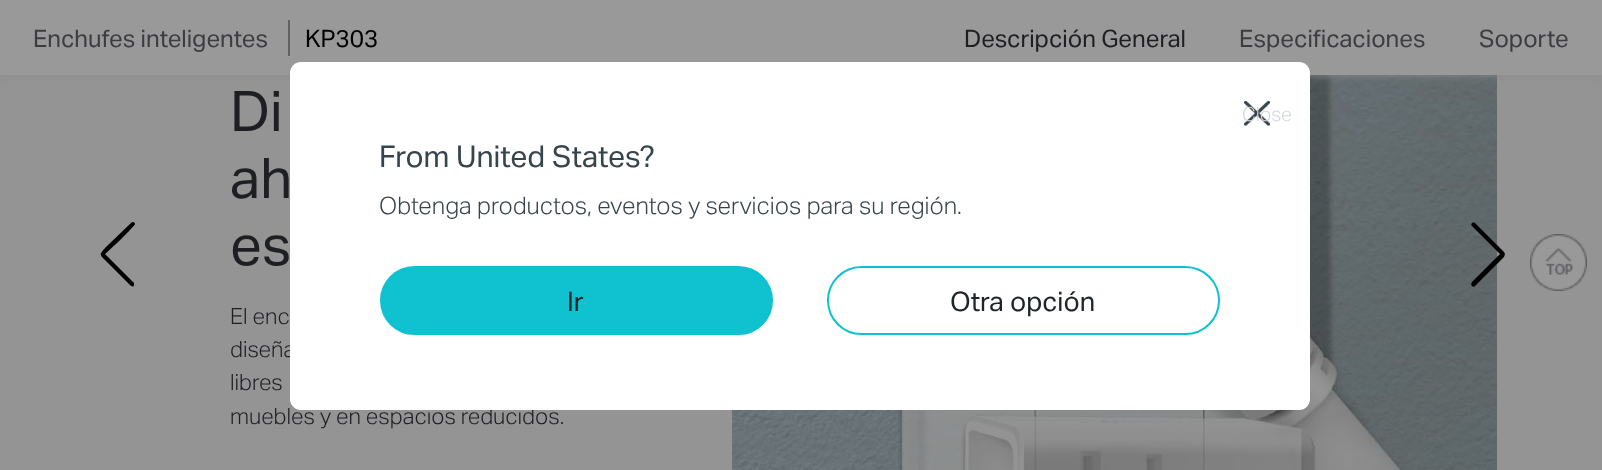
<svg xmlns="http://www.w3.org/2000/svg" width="1602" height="470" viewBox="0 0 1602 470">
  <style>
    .t1 { font: 24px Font; fill: #3c3d41; }
    .t2 { font: 24px Font; fill: #000; }
    .t3 { font: 24px Font; fill: #1e1f23; }
    .t4 { font: 56px Font; fill: #1e1f23; }
    .t5 { font: 300 22.25px Font; fill: #1e1f23; }
    .t6 { font: 300 19.5px Font; fill: #d3d6d8; }
    .t7 { font: 30px Font; fill: #36444b; }
    .t8 { font: 300 24px Font; fill: #36444b; }
    .t9 { font: 27px Font; fill: #1d2529; }
  </style>
  <rect width="100%" height="100%" fill="#949494"/>
  <image x="732" y="75" width="765" height="395" href="images/1.png"/>
  <rect x="0" y="0" width="1602" height="75" fill="#8a8b8f" filter="blur(5px)"/>
  <rect x="0" y="0" width="1602" height="75" fill="#999"/>
  <text x="33" y="47" class="t1">Enchufes inteligentes</text>
  <rect x="288" y="20" width="2" height="36" fill="#606165"/>
  <text x="305" y="47" class="t2">KP303</text>
  <text x="964" y="47" class="t3">Descripción General</text>
  <text x="1239" y="47" class="t1">Especificaciones</text>
  <text x="1479" y="47" class="t1">Soporte</text>
  <path d="M131 223C132 221 135 222 135 224C135 226 109 251 105 254L134 283V285C133 289 129 284 126 281L106 261C99 254 99 255 106 247Z" fill="#000"/>
  <text x="230" y="131" class="t4">Di</text>
  <text x="230" y="198" class="t4">ah</text>
  <text x="230" y="265" class="t4">es</text>
  <text x="230" y="324" class="t5">El enc</text>
  <text x="230" y="357" class="t5">diseña</text>
  <text x="230" y="390" class="t5">libres</text>
  <text x="230" y="424" class="t5">muebles y en espacios reducidos.</text>
  <path d="M1472 286C1471 285 1471 284 1472 282L1500 254L1472 226C1471 225 1471 224 1472 223C1473 222 1474 222 1475 223L1504 252L1505 254L1504 257L1475 286C1474 287 1473 287 1472 286Z" fill="#000"/>
  <rect x="290" y="62" width="1020" height="348" rx="11" fill="#fff"/>
  <image x="1243" y="100" width="28" height="26" href="images/2.png"/>
  <text x="1242" y="121" class="t6">Close</text>
  <text x="379" y="167" class="t7">From United States?</text>
  <text x="379" y="214" class="t8">Obtenga productos, eventos y servicios para su región.</text>
  <rect x="381" y="267" width="391" height="67" rx="33.5" fill="#10c1d0" stroke="#10c1d0" stroke-width="2"/>
  <text x="567" y="311" class="t9">Ir</text>
  <rect x="828" y="267" width="391" height="67" rx="33.5" fill="none" stroke="#10c1d0" stroke-width="2"/>
  <text x="950" y="311" class="t9">Otra opción</text>
  <image x="1530" y="234" width="57" height="57" href="images/3.png"/>
</svg>
